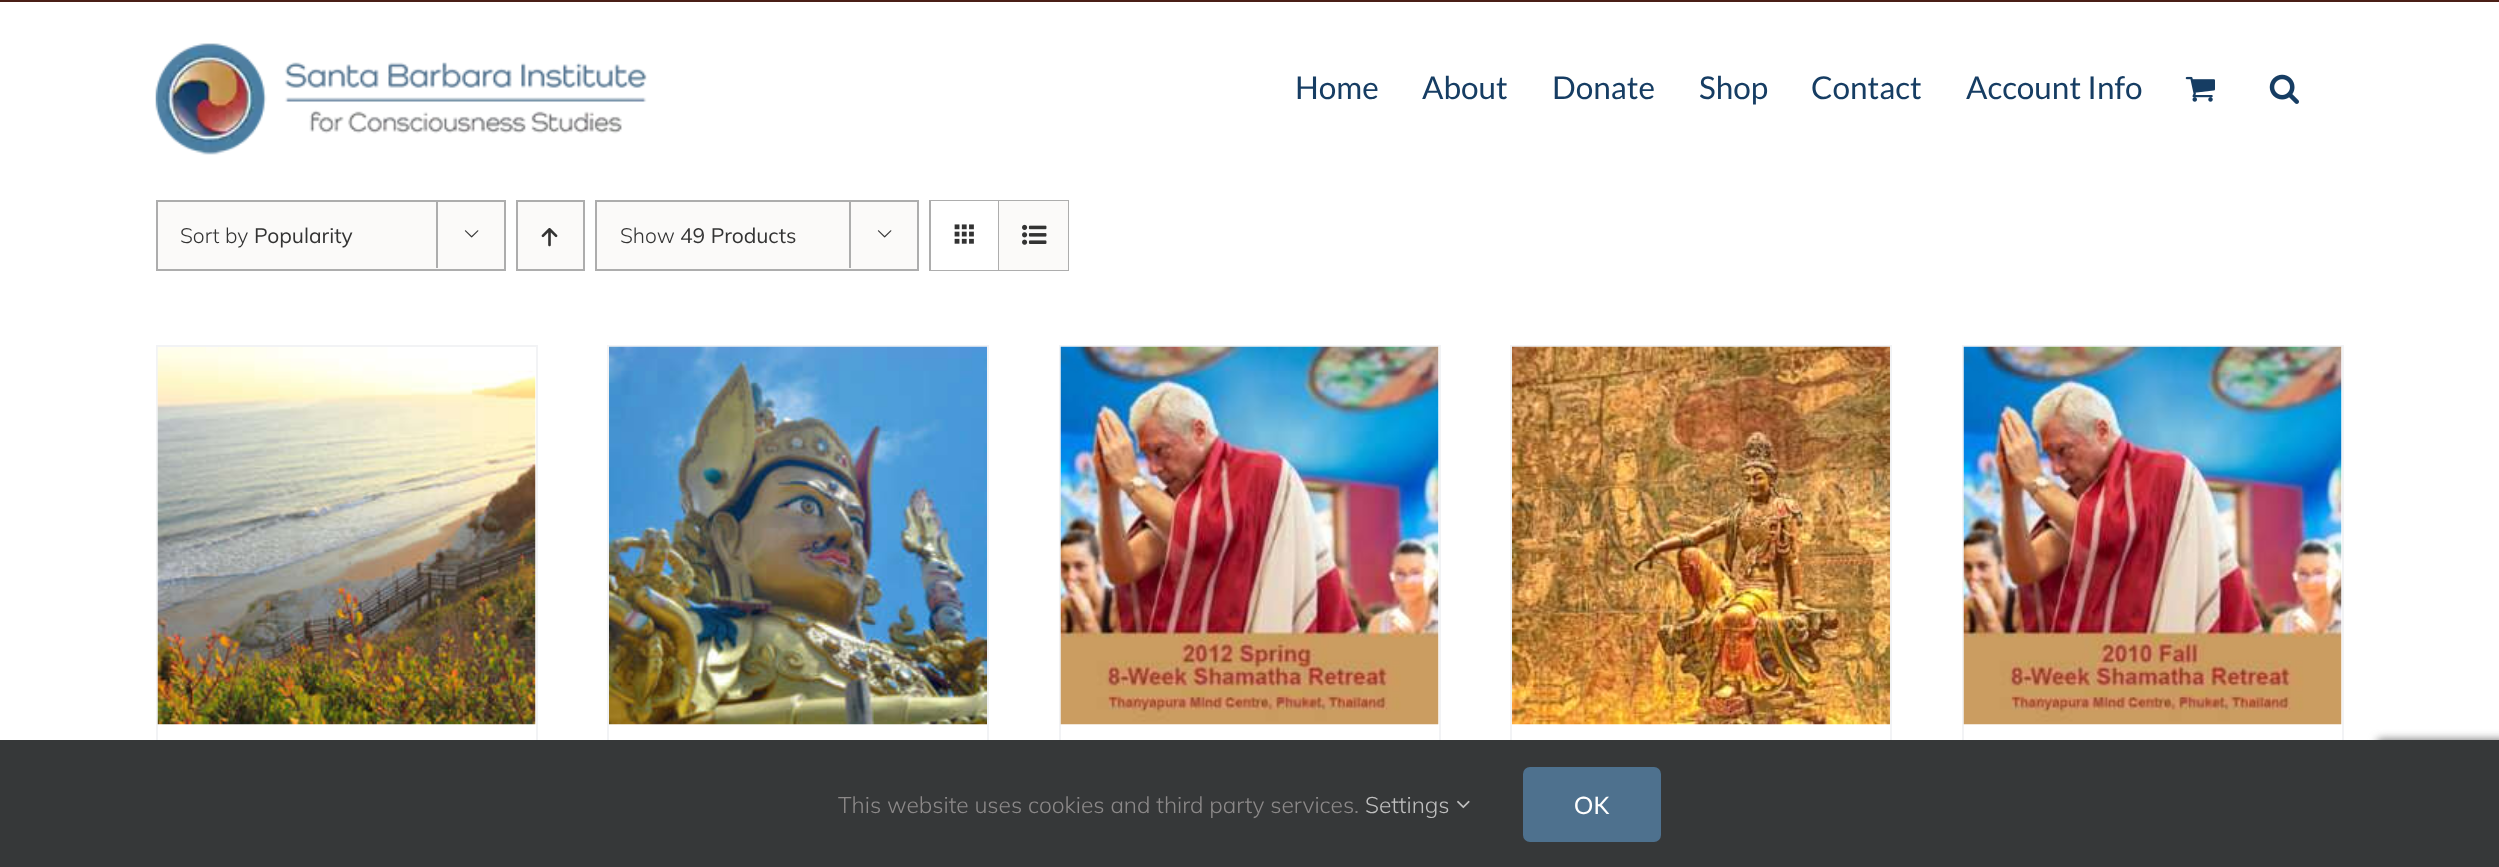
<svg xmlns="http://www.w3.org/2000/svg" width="2499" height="867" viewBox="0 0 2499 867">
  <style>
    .t1 { font: 31.5px Lato; fill: #163d63; }
    .t2 { font: 300 21px Mulish; fill: #333; }
    .t3 { font: 21px Mulish; fill: #333; }
    .t4 { font: 300 22.75px Mulish; fill: #8c8989; }
    .t5 { font: 300 22.75px Mulish; fill: #bfbfbf; }
    .t6 { font: 24px Lato; fill: #fff; }
  </style>
  <rect width="100%" height="100%" fill="#fff"/>
  <rect x="0" y="0" width="2499" height="2" fill="#4a1f16"/>
  <image x="155" y="43" width="492" height="112" href="images/1.png"/>
  <text x="1295" y="99" class="t1">Home</text>
  <text x="1422" y="99" class="t1">About</text>
  <text x="1552" y="99" class="t1">Donate</text>
  <text x="1699" y="99" class="t1">Shop</text>
  <text x="1811" y="99" class="t1">Contact</text>
  <text x="1966" y="99" class="t1">Account Info</text>
  <image x="2185" y="76" width="30" height="26" href="images/2.png"/>
  <image x="2269" y="74" width="30" height="30" href="images/3.png"/>
  <rect x="157" y="201" width="348" height="69" fill="#fbfaf9" stroke="#adadad" stroke-width="2"/>
  <text x="180" y="243" class="t2">Sort by</text>
  <text x="254" y="243" class="t3">Popularity</text>
  <rect x="436" y="200" width="2" height="68" fill="#adadad"/>
  <image x="464" y="230" width="15" height="8" href="images/4.png"/>
  <rect x="517" y="201" width="67" height="69" fill="#fbfaf9" stroke="#adadad" stroke-width="2"/>
  <image x="541" y="228" width="17" height="19" href="images/5.png"/>
  <rect x="596" y="201" width="322" height="69" fill="#fbfaf9" stroke="#adadad" stroke-width="2"/>
  <text x="620" y="243" class="t2">Show</text>
  <text x="680" y="243" class="t3">49 Products</text>
  <rect x="849" y="200" width="2" height="68" fill="#adadad"/>
  <image x="877" y="230" width="15" height="8" href="images/4.png"/>
  <rect x="930" y="201" width="138" height="69" fill="none" stroke="#adadad" stroke-width="2"/>
  <rect x="931" y="201" width="67" height="69" fill="#fff"/>
  <rect x="998" y="201" width="1" height="69" fill="#adadad"/>
  <image x="954" y="224" width="20" height="20" href="images/6.png"/>
  <rect x="999" y="201" width="69" height="69" fill="#fbfaf9"/>
  <image x="1022" y="224" width="25" height="21" href="images/7.png"/>
  <rect x="156" y="345" width="381" height="2" fill="#f2f3f5"/>
  <rect x="536" y="345" width="2" height="395" fill="#f2f3f5"/>
  <rect x="156" y="345" width="2" height="395" fill="#f2f3f5"/>
  <image x="157" y="347" width="379" height="378" href="images/8.png"/>
  <rect x="607" y="345" width="382" height="2" fill="#f2f3f5"/>
  <rect x="987" y="345" width="2" height="395" fill="#f2f3f5"/>
  <rect x="607" y="345" width="2" height="395" fill="#f2f3f5"/>
  <image x="609" y="346" width="378" height="379" href="images/9.png"/>
  <rect x="1059" y="345" width="381" height="2" fill="#f2f3f5"/>
  <rect x="1439" y="345" width="2" height="395" fill="#f2f3f5"/>
  <rect x="1059" y="345" width="2" height="395" fill="#f2f3f5"/>
  <image x="1060" y="346" width="379" height="379" href="images/10.png"/>
  <rect x="1510" y="345" width="382" height="2" fill="#f2f3f5"/>
  <rect x="1890" y="345" width="2" height="395" fill="#f2f3f5"/>
  <rect x="1510" y="345" width="2" height="395" fill="#f2f3f5"/>
  <image x="1512" y="346" width="378" height="379" href="images/11.png"/>
  <rect x="1962" y="345" width="381" height="2" fill="#f2f3f5"/>
  <rect x="2342" y="345" width="2" height="395" fill="#f2f3f5"/>
  <rect x="1962" y="345" width="2" height="395" fill="#f2f3f5"/>
  <image x="1963" y="346" width="379" height="379" href="images/12.png"/>
  <rect x="2377" y="739" width="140" height="105" rx="4" fill="#808080" filter="blur(4.5px)"/>
  <rect x="0" y="740" width="2499" height="127" fill="#363839"/>
  <text x="838" y="813" class="t4">This website uses cookies and third party services.</text>
  <text x="1365" y="813" class="t5">Settings</text>
  <image x="1457" y="800" width="13" height="9" href="images/13.png"/>
  <rect x="1523" y="767" width="138" height="75" rx="7" fill="#4e718e"/>
  <text x="1574" y="814" class="t6">OK</text>
</svg>
